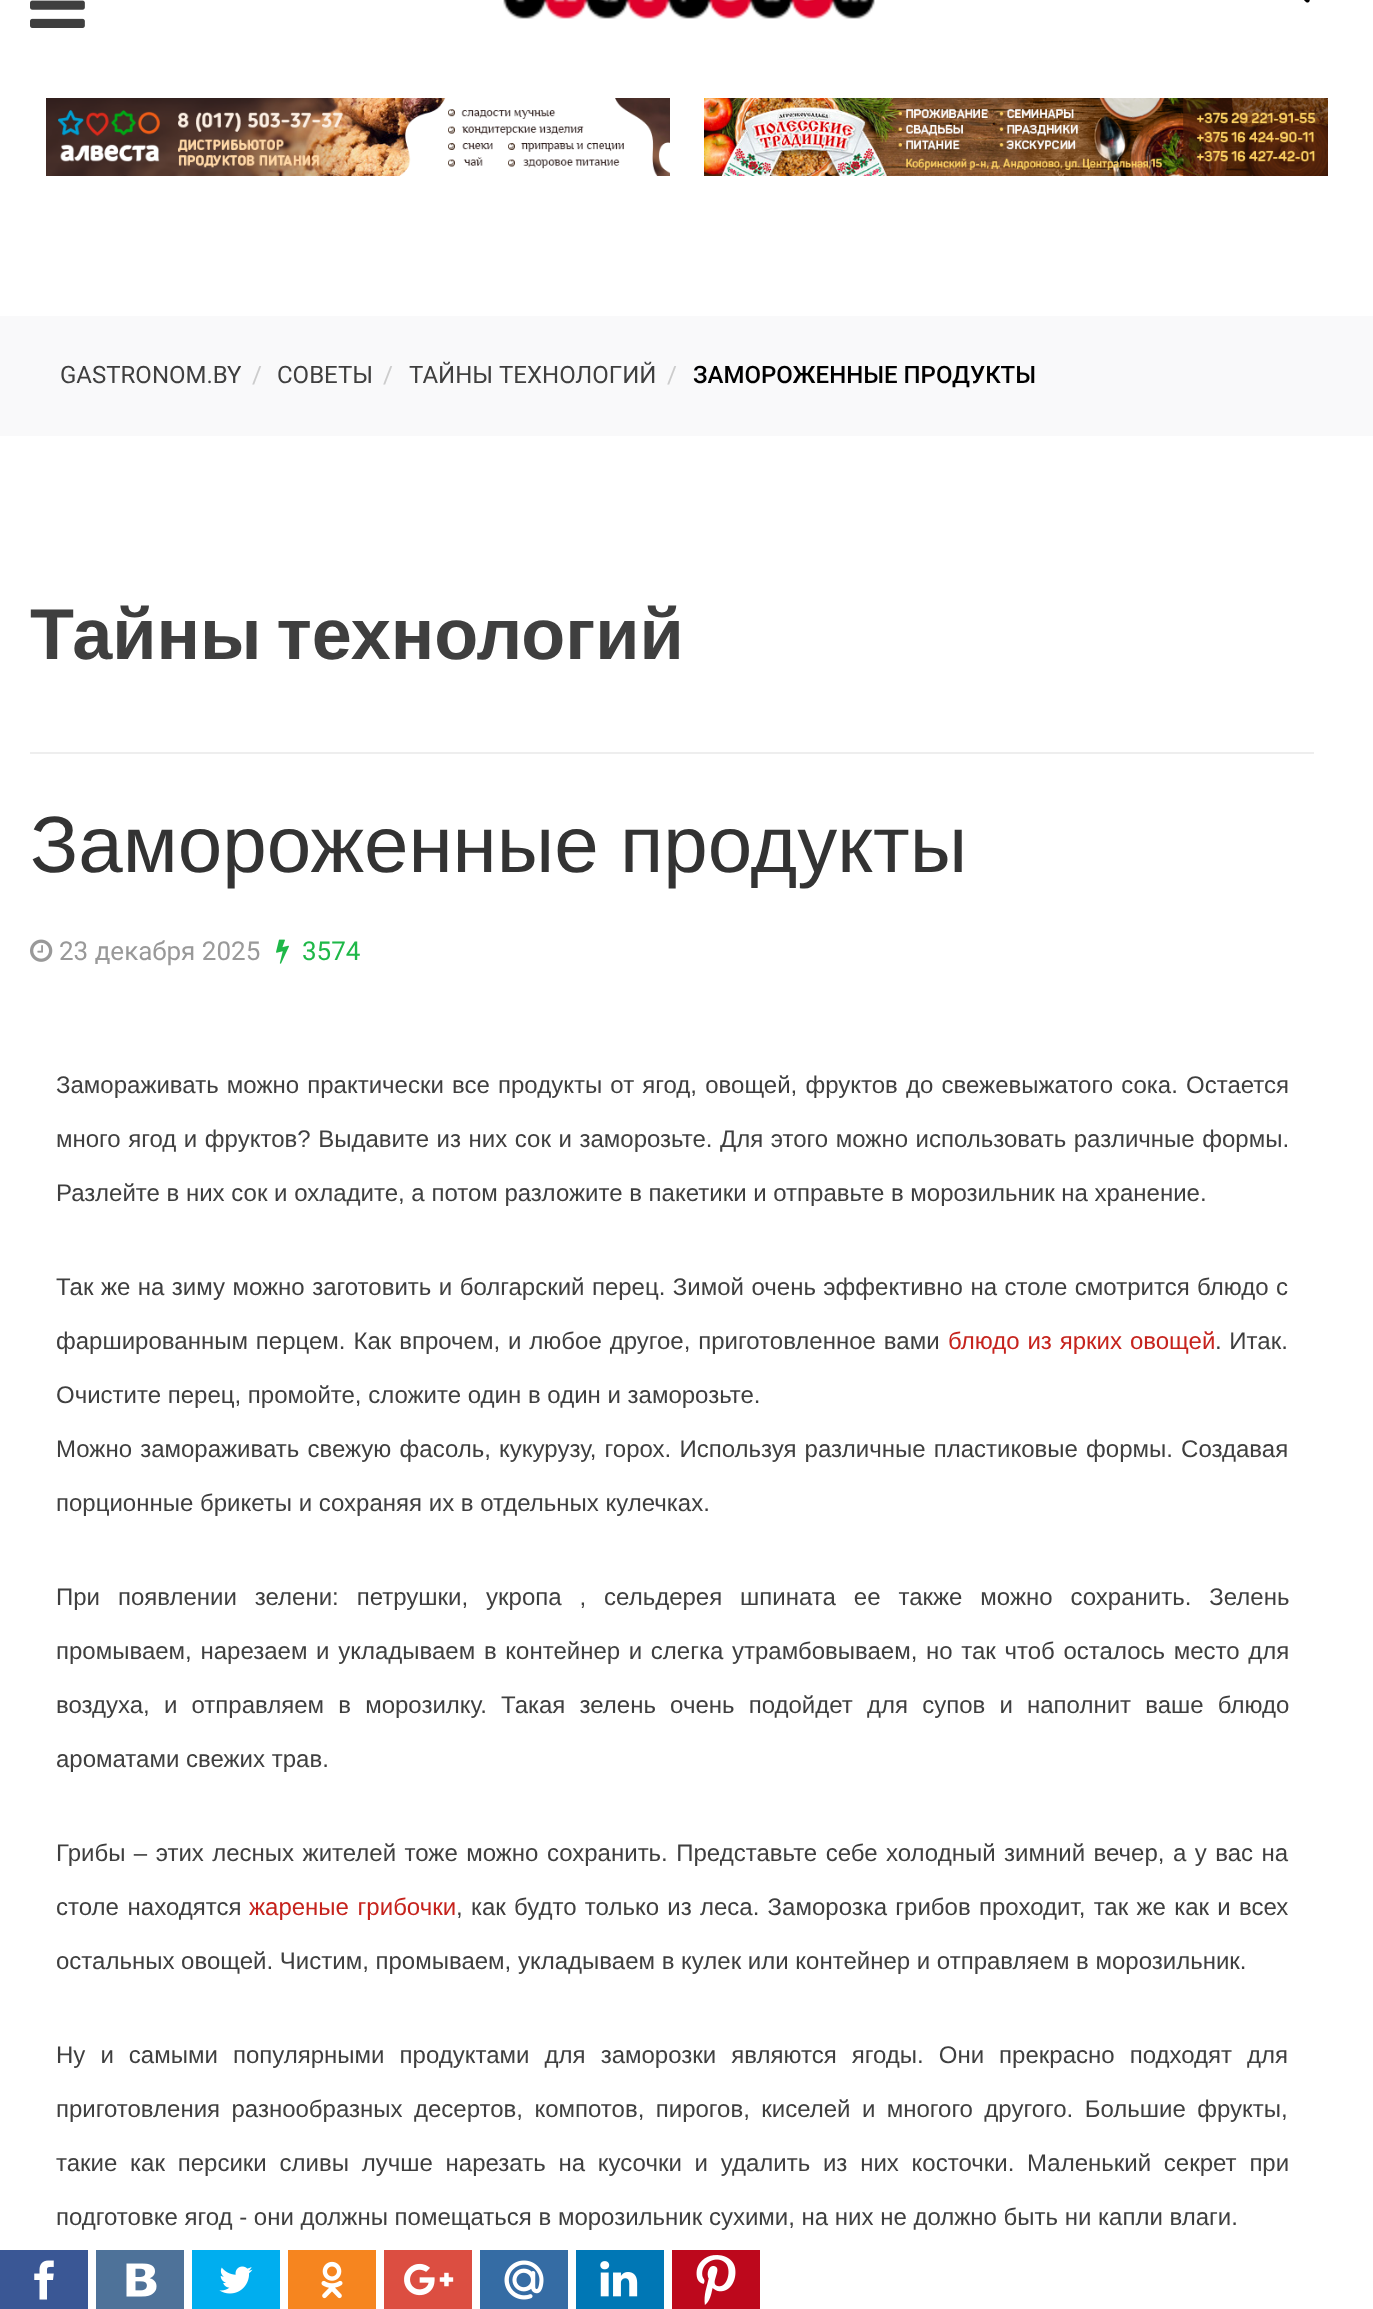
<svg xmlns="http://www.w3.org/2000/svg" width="1373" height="2309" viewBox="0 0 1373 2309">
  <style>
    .t1 { font: 24px Roboto; fill: #3f3f3f; }
    .t2 { font: 24px Roboto; fill: #ccc; }
    .t3 { font: 500 24px Roboto; fill: #000; }
    .t4 { font: bold 72px Liberation Sans; fill: #3f3f3f; }
    .t5 { font: 80px Liberation Sans; fill: #333; }
    .t6 { font: 26px Roboto; fill: #999; }
    .t7 { font: 26px Roboto; fill: #1eb848; }
    .t8 { font: 24px Liberation Sans; fill: #3f3f3f; }
    .t9 { font: 24px Liberation Sans; fill: #c6231d; }
  </style>
  <rect width="100%" height="100%" fill="#fff"/>
  <image x="30" y="0" width="55" height="28" href="images/1.png"/>
  <image x="503" y="0" width="372" height="19" href="images/2.png"/>
  <image x="1304" y="0" width="6" height="3" href="images/3.png"/>
  <image x="46" y="98" width="624" height="78" href="images/4.png"/>
  <image x="704" y="98" width="624" height="78" href="images/5.png"/>
  <rect x="0" y="316" width="1373" height="120" fill="#f9f9fa"/>
  <text x="60" y="383" class="t1">GASTRONOM.BY</text>
  <text x="252" y="383" class="t2">/</text>
  <text x="277" y="383" class="t1">СОВЕТЫ</text>
  <text x="383" y="383" class="t2">/</text>
  <text x="409" y="383" class="t1">ТАЙНЫ ТЕХНОЛОГИЙ</text>
  <text x="667" y="383" class="t2">/</text>
  <text x="693" y="383" class="t3">ЗАМОРОЖЕННЫЕ ПРОДУКТЫ</text>
  <rect x="30" y="752" width="1284" height="2" fill="#eee"/>
  <text x="30" y="659" word-spacing="-5" class="t4">Тайны технологий</text>
  <text x="30" y="872" word-spacing="-1" class="t5">Замороженные продукты</text>
  <image x="30" y="939" width="23" height="23" href="images/6.png"/>
  <text x="59" y="960" class="t6">23 декабря 2025</text>
  <image x="276" y="939" width="13" height="25" href="images/7.png"/>
  <text x="302" y="960" class="t7">3574</text>
  <text x="56" y="1093" word-spacing="1.5" class="t8">Замораживать можно практически все продукты от ягод, овощей, фруктов до свежевыжатого сока. Остается</text>
  <text x="56" y="1147" word-spacing="0.9" class="t8">много ягод и фруктов? Выдавите из них сок и заморозьте. Для этого можно использовать различные формы.</text>
  <text x="56" y="1201" class="t8">Разлейте в них сок и охладите, а потом разложите в пакетики и отправьте в морозильник на хранение.</text>
  <text x="56" y="1295" word-spacing="0.8" class="t8">Так же на зиму можно заготовить и болгарский перец. Зимой очень эффективно на столе смотрится блюдо с</text>
  <text x="56" y="1349" word-spacing="1.25" class="t8">фаршированным перцем. Как впрочем, и любое другое, приготовленное вами</text>
  <text x="948" y="1349" word-spacing="1.25" class="t9">блюдо из ярких овощей</text>
  <text x="1215" y="1349" word-spacing="1" class="t8">. Итак.</text>
  <text x="56" y="1403" class="t8">Очистите перец, промойте, сложите один в один и заморозьте.</text>
  <text x="56" y="1457" word-spacing="1.5" class="t8">Можно замораживать свежую фасоль, кукурузу, горох. Используя различные пластиковые формы. Создавая</text>
  <text x="56" y="1511" class="t8">порционные брикеты и сохраняя их в отдельных кулечках.</text>
  <text x="56" y="1605" word-spacing="11.25" class="t8">При появлении зелени: петрушки, укропа , сельдерея шпината ее также можно сохранить. Зелень</text>
  <text x="56" y="1659" word-spacing="2" class="t8">промываем, нарезаем и укладываем в контейнер и слегка утрамбовываем, но так чтоб осталось место для</text>
  <text x="56" y="1713" word-spacing="7.5" class="t8">воздуха, и отправляем в морозилку. Такая зелень очень подойдет для супов и наполнит ваше блюдо</text>
  <text x="56" y="1767" class="t8">ароматами свежих трав.</text>
  <text x="56" y="1861" word-spacing="1.8" class="t8">Грибы – этих лесных жителей тоже можно сохранить. Представьте себе холодный зимний вечер, а у вас на</text>
  <text x="56" y="1915" word-spacing="2" class="t8">столе находятся</text>
  <text x="249" y="1915" word-spacing="2" class="t9">жареные грибочки</text>
  <text x="456" y="1915" word-spacing="1.6" class="t8">, как будто только из леса. Заморозка грибов проходит, так же как и всех</text>
  <text x="56" y="1969" class="t8">остальных овощей. Чистим, промываем, укладываем в кулек или контейнер и отправляем в морозильник.</text>
  <text x="56" y="2063" word-spacing="8.4" class="t8">Ну и самыми популярными продуктами для заморозки являются ягоды. Они прекрасно подходят для</text>
  <text x="56" y="2117" word-spacing="4.75" class="t8">приготовления разнообразных десертов, компотов, пирогов, киселей и многого другого. Большие фрукты,</text>
  <text x="56" y="2171" word-spacing="6.1" class="t8">такие как персики сливы лучше нарезать на кусочки и удалить из них косточки. Маленький секрет при</text>
  <text x="56" y="2225" class="t8">подготовке ягод - они должны помещаться в морозильник сухими, на них не должно быть ни капли влаги.</text>
  <rect x="0" y="2250" width="88" height="59" fill="#3a5795"/>
  <image x="34" y="2260" width="20" height="40" href="images/8.png"/>
  <rect x="96" y="2250" width="88" height="59" fill="#4e7299"/>
  <image x="126" y="2263" width="31" height="34" href="images/9.png"/>
  <rect x="192" y="2250" width="88" height="59" fill="#00aeef"/>
  <image x="219" y="2266" width="34" height="28" href="images/10.png"/>
  <rect x="288" y="2250" width="88" height="59" fill="#f6851f"/>
  <image x="321" y="2261" width="22" height="38" href="images/11.png"/>
  <rect x="384" y="2250" width="88" height="59" fill="#dc4e41"/>
  <image x="404" y="2263" width="50" height="33" href="images/12.png"/>
  <rect x="480" y="2250" width="88" height="59" fill="#356ca4"/>
  <image x="504" y="2260" width="40" height="40" href="images/13.png"/>
  <rect x="576" y="2250" width="88" height="59" fill="#0077b5"/>
  <image x="600" y="2261" width="38" height="36" href="images/14.png"/>
  <rect x="672" y="2250" width="88" height="59" fill="#bd081c"/>
  <image x="696" y="2255" width="40" height="50" href="images/15.png"/>
</svg>
